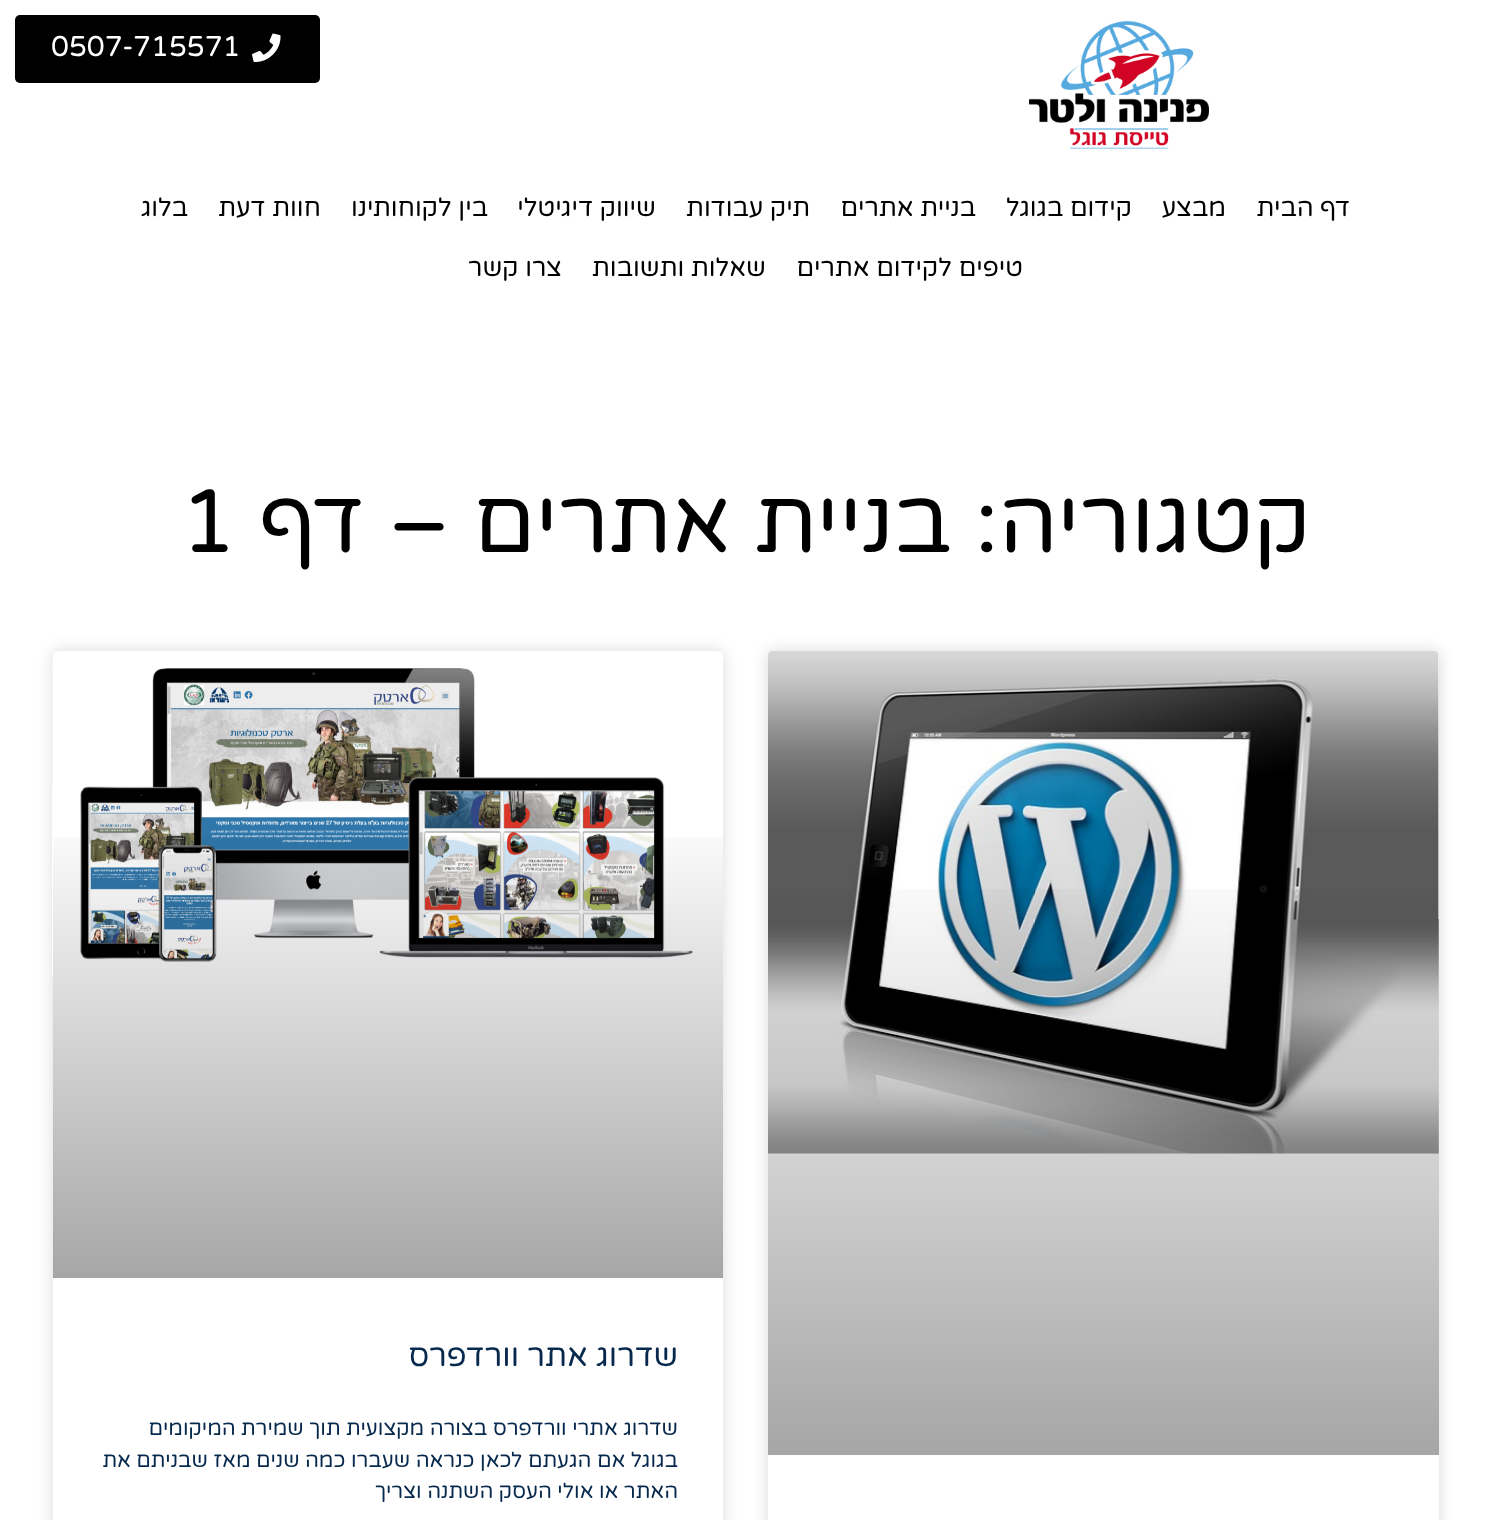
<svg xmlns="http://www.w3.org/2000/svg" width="1491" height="1520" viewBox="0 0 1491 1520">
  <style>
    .t1 { font: 28.5px Varela Round; fill: #fff; }
    .t2 { font: 25.5px Varela Round; direction: rtl; fill: #000; }
    .t3 { font: 90px Varela Round; direction: rtl; fill: #000; }
    .t4 { font: 90px Varela Round; fill: #000; }
    .t5 { font: 31.5px Varela Round; direction: rtl; fill: #07294d; }
    .t6 { font: 21px Varela Round; direction: rtl; fill: #07294d; }
  </style>
  <defs>
    <linearGradient id="g1" gradientUnits="userSpaceOnUse" x1="1103" y1="1455" x2="1103" y2="651"><stop offset="0" stop-color="#000" stop-opacity="0.35"/><stop offset="0.75" stop-color="#000" stop-opacity="0"/></linearGradient>
    <linearGradient id="g2" gradientUnits="userSpaceOnUse" x1="388" y1="1278" x2="388" y2="651"><stop offset="0" stop-color="#000" stop-opacity="0.35"/><stop offset="0.75" stop-color="#000" stop-opacity="0"/></linearGradient>
  </defs>
  <rect width="100%" height="100%" fill="#fff"/>
  <image x="1029" y="20" width="180" height="129" href="images/1.png"/>
  <rect x="15" y="15" width="305" height="68" rx="5" fill="#000"/>
  <image x="252" y="33" width="29" height="30" href="images/2.png"/>
  <text x="51" y="56" class="t1">0507-715571</text>
  <text x="1350" y="216" class="t2">דף הבית</text>
  <text x="1226" y="216" class="t2">מבצע</text>
  <text x="1132" y="216" class="t2">קידום בגוגל</text>
  <text x="976" y="216" class="t2">בניית אתרים</text>
  <text x="810" y="216" class="t2">תיק עבודות</text>
  <text x="656" y="216" class="t2">שיווק דיגיטלי</text>
  <text x="488" y="216" class="t2">בין לקוחותינו</text>
  <text x="321" y="216" class="t2">חוות דעת</text>
  <text x="188" y="216" class="t2">בלוג</text>
  <text x="1023" y="276" class="t2">טיפים לקידום אתרים</text>
  <text x="766" y="276" class="t2">שאלות ותשובות</text>
  <text x="562" y="276" class="t2">צרו קשר</text>
  <text x="1311" y="552" class="t3">קטגוריה: בניית אתרים – דף</text>
  <text x="180" y="552" class="t4">1</text>
  <rect x="768" y="651" width="671" height="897" rx="5" fill="#00000026" filter="blur(7.5px)"/>
  <rect x="768" y="651" width="671" height="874" rx="5" fill="#fff"/>
  <image x="768" y="651" width="671" height="503" href="images/3.png"/>
  <rect x="768" y="889" width="671" height="566" fill="url(#g1)"/>
  <rect x="53" y="651" width="670" height="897" rx="5" fill="#00000026" filter="blur(7.5px)"/>
  <rect x="53" y="651" width="670" height="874" rx="5" fill="#fff"/>
  <image x="52" y="660" width="641" height="317" href="images/4.png"/>
  <rect x="53" y="837" width="670" height="441" fill="url(#g2)"/>
  <text x="678" y="1366" class="t5">שדרוג אתר וורדפרס</text>
  <text x="678" y="1435" class="t6">שדרוג אתרי וורדפרס בצורה מקצועית תוך שמירת המיקומים</text>
  <text x="678" y="1467" class="t6">בגוגל אם הגעתם לכאן כנראה שעברו כמה שנים מאז שבניתם את</text>
  <text x="678" y="1498" class="t6">האתר או אולי העסק השתנה וצריך</text>
</svg>
